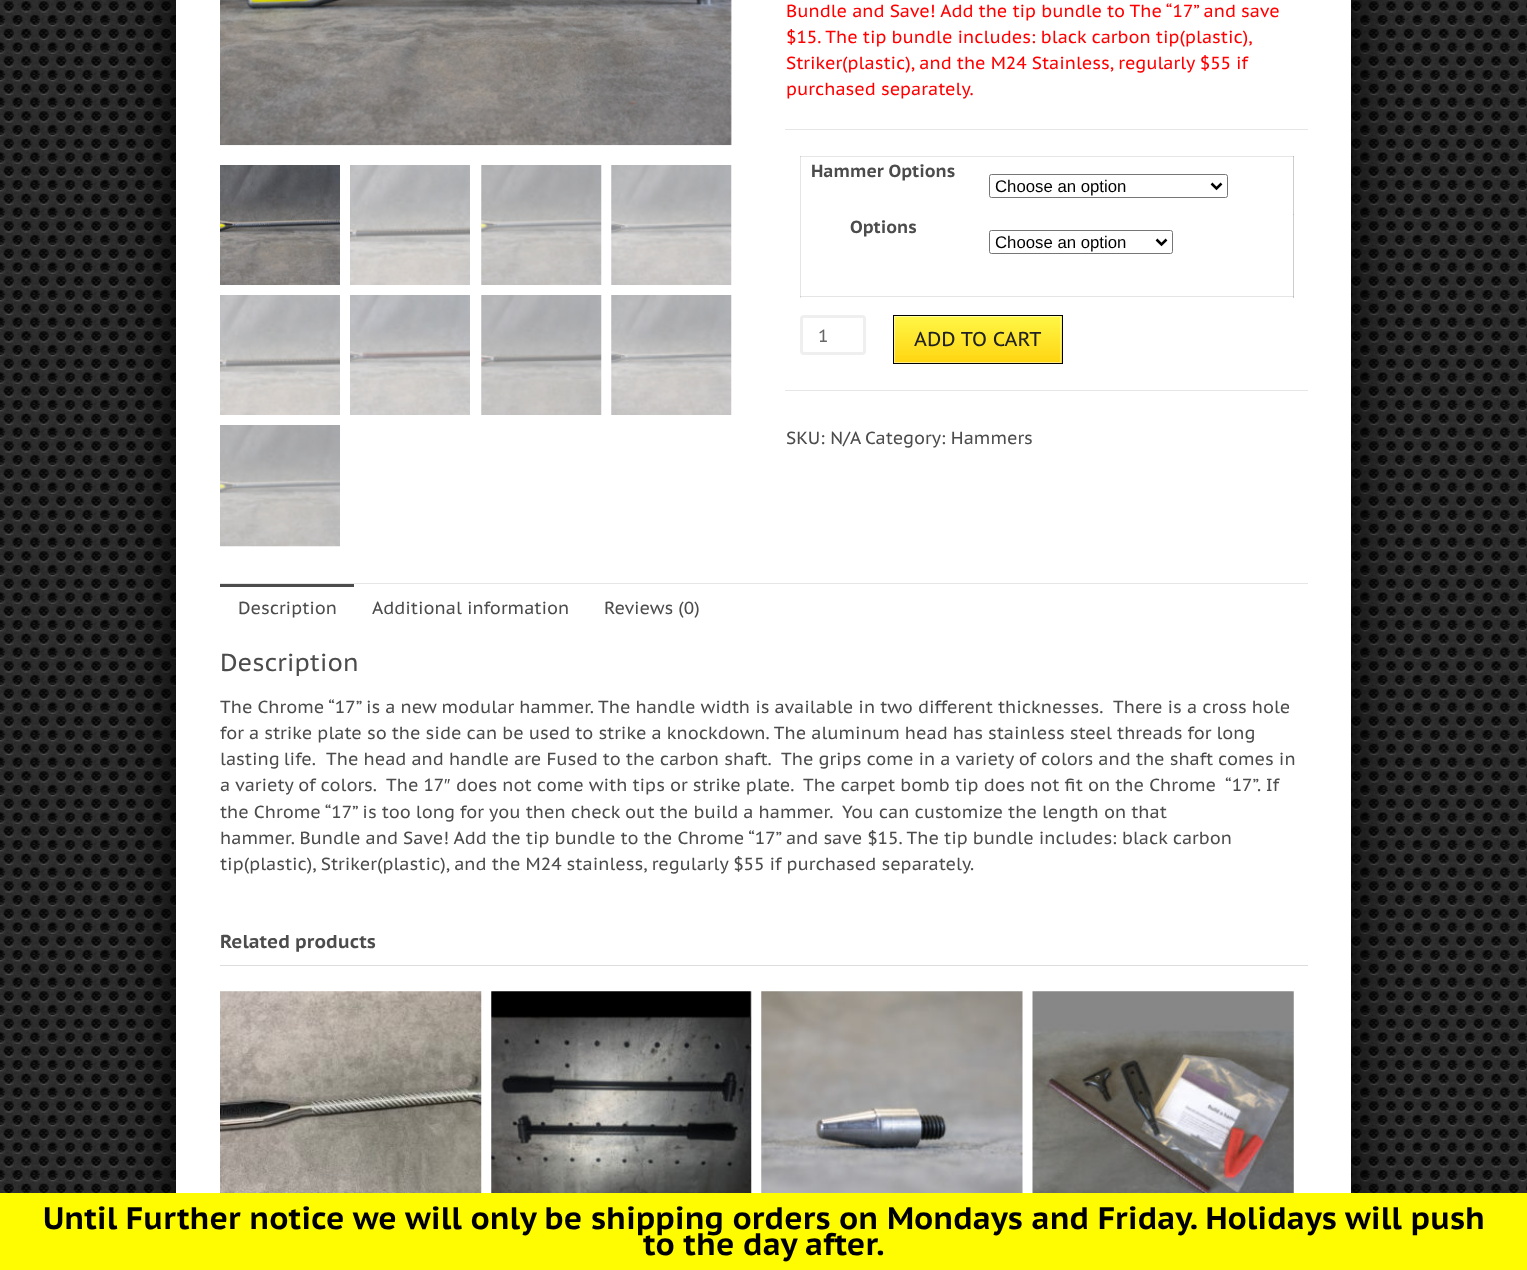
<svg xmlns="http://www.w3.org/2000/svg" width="1527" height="1270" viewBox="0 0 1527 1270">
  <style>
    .t1 { font: 17.5px PT Sans Caption; fill: #f00; }
    .t2 { font: bold 17.5px PT Sans Caption; fill: #4c4c4c; }
    .t3 { font: 16.75px Liberation Sans; fill: #000; }
    .t4 { font: 17.5px PT Sans Caption; fill: #666; }
    .t5 { font: 20px PT Sans Caption; fill: #222; }
    .t6 { font: 17.5px PT Sans Caption; fill: #4c4c4c; }
    .t7 { font: 24.5px PT Sans Caption; fill: #4c4c4c; }
    .t8 { font: 17.5px Liberation Sans; fill: #4c4c4c; }
    .t9 { font: bold 18.75px PT Sans Caption; fill: #4c4c4c; }
    .t10 { font: bold 31.25px PT Sans Caption; fill: #000; }
  </style>
  <defs>
    <linearGradient id="g1" gradientUnits="userSpaceOnUse" x1="978" y1="374" x2="978" y2="305"><stop offset="0" stop-color="#ffcd05"/><stop offset="1" stop-color="#ffff53"/></linearGradient>
  </defs>
  <rect width="100%" height="100%" fill="#fff"/>
  <image x="0" y="0" width="1527" height="1193" href="images/1.png"/>
  <rect x="176" y="-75" width="1175" height="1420" fill="#000" filter="blur(25px)"/>
  <rect x="176" y="-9" width="1175" height="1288" fill="#0000001a" filter="blur(3px)"/>
  <rect x="176" y="0" width="1175" height="1193" fill="#fff"/>
  <image x="220" y="0" width="512" height="146" href="images/2.png"/>
  <image x="220" y="165" width="120" height="120" href="images/3.png"/>
  <image x="350" y="165" width="120" height="120" href="images/4.png"/>
  <image x="481" y="165" width="121" height="120" href="images/5.png"/>
  <image x="611" y="165" width="121" height="120" href="images/6.png"/>
  <image x="220" y="295" width="120" height="120" href="images/7.png"/>
  <image x="350" y="295" width="120" height="120" href="images/8.png"/>
  <image x="481" y="295" width="121" height="120" href="images/9.png"/>
  <image x="611" y="295" width="121" height="120" href="images/10.png"/>
  <image x="220" y="425" width="120" height="122" href="images/11.png"/>
  <text x="786" y="17" class="t1">Bundle and Save! Add the tip bundle to The “17” and save</text>
  <text x="786" y="43" class="t1">$15. The tip bundle includes: black carbon tip(plastic),</text>
  <text x="786" y="69" class="t1">Striker(plastic), and the M24 Stainless, regularly $55 if</text>
  <text x="786" y="95" class="t1">purchased separately.</text>
  <rect x="785" y="129" width="523" height="1" fill="#e6e6e6"/>
  <rect x="785" y="390" width="523" height="1" fill="#e6e6e6"/>
  <rect x="800" y="156" width="494" height="1" fill="#e6e6e6"/>
  <rect x="1293" y="156" width="1" height="142" fill="#0000001a"/>
  <rect x="800" y="296" width="494" height="1" fill="#0000001a"/>
  <rect x="800" y="156" width="1" height="142" fill="#0000001a"/>
  <text x="811" y="177" class="t2">Hammer Options</text>
  <rect x="1293" y="214" width="1" height="84" fill="#0000001a"/>
  <rect x="1293" y="156" width="1" height="59" fill="#0000001a"/>
  <rect x="989.5" y="174.5" width="238" height="23" rx="2" fill="none" stroke="#767676"/>
  <path d="M1211.5 183.5L1216.5 188.5L1221.5 183.5" fill="none" stroke="#000" stroke-width="2.5"/>
  <text x="995" y="192" class="t3">Choose an option</text>
  <text x="850" y="233" class="t2">Options</text>
  <rect x="989.5" y="230.5" width="183" height="23" rx="2" fill="none" stroke="#767676"/>
  <path d="M1156.5 239.5L1161.5 244.5L1166.5 239.5" fill="none" stroke="#000" stroke-width="2.5"/>
  <text x="995" y="248" class="t3">Choose an option</text>
  <rect x="801.5" y="316.5" width="63" height="37" rx="2.5" fill="none" stroke="#efefef" stroke-width="3"/>
  <text x="818" y="342" class="t4">1</text>
  <rect x="894" y="316" width="168" height="47" fill="url(#g1)"/>
  <rect x="894.5" y="316.5" width="166" height="46" fill="none" stroke="#ffffff80"/>
  <rect x="893.5" y="315.5" width="169" height="48" fill="none" stroke="#000"/>
  <text x="914" y="346" class="t5">ADD TO CART</text>
  <text x="786" y="444" class="t6">SKU: N/A</text>
  <text x="865" y="444" class="t6">Category: Hammers</text>
  <rect x="220" y="583" width="1088" height="1" fill="#e6e6e6"/>
  <rect x="220" y="584" width="134" height="3" fill="#4c4c4c"/>
  <text x="238" y="614" class="t6">Description</text>
  <text x="372" y="614" class="t6">Additional information</text>
  <text x="604" y="614" class="t6">Reviews (0)</text>
  <text x="220" y="671" class="t7">Description</text>
  <text x="220" y="713" class="t6">The Chrome “17” is a new modular hammer. The handle width is available in two different thicknesses.</text>
  <text x="1113" y="713" class="t6">There is a cross hole</text>
  <text x="220" y="739" class="t6">for a strike plate so the side can be used to strike a knockdown. The aluminum head has stainless steel threads for long</text>
  <text x="220" y="765" word-spacing="-1" class="t6">lasting life.</text>
  <text x="326" y="765" class="t6">The head and handle are Fused to the carbon shaft.</text>
  <text x="781" y="765" class="t6">The grips come in a variety of colors and the shaft comes in</text>
  <text x="220" y="791" class="t6">a variety of colors.</text>
  <text x="386" y="791" class="t6">The 17</text>
  <text x="444" y="791" class="t8">″</text>
  <text x="456" y="791" class="t6">does not come with tips or strike plate.</text>
  <text x="803" y="791" class="t6" xml:space="preserve">The carpet bomb tip does not fit on the Chrome  “17”. If</text>
  <text x="220" y="818" class="t6">the Chrome “17” is too long for you then check out the build a hammer.</text>
  <text x="842" y="818" class="t6">You can customize the length on that</text>
  <text x="220" y="844" class="t6">hammer. Bundle and Save! Add the tip bundle to the Chrome “17” and save $15. The tip bundle includes: black carbon</text>
  <text x="220" y="870" class="t6">tip(plastic), Striker(plastic), and the M24 stainless, regularly $55 if purchased separately.</text>
  <rect x="220" y="965" width="1088" height="1" fill="#ddd"/>
  <text x="220" y="948" class="t9">Related products</text>
  <image x="220" y="991" width="262" height="202" href="images/12.png"/>
  <image x="491" y="991" width="261" height="202" href="images/13.png"/>
  <image x="761" y="991" width="262" height="202" href="images/14.png"/>
  <image x="1032" y="991" width="262" height="202" href="images/15.png"/>
  <rect x="0" y="1193" width="1527" height="77" fill="#fffb00"/>
  <text x="43" y="1229" class="t10">Until Further notice we will only be shipping orders on Mondays and Friday. Holidays will push</text>
  <text x="643" y="1255" class="t10">to the day after.</text>
</svg>
